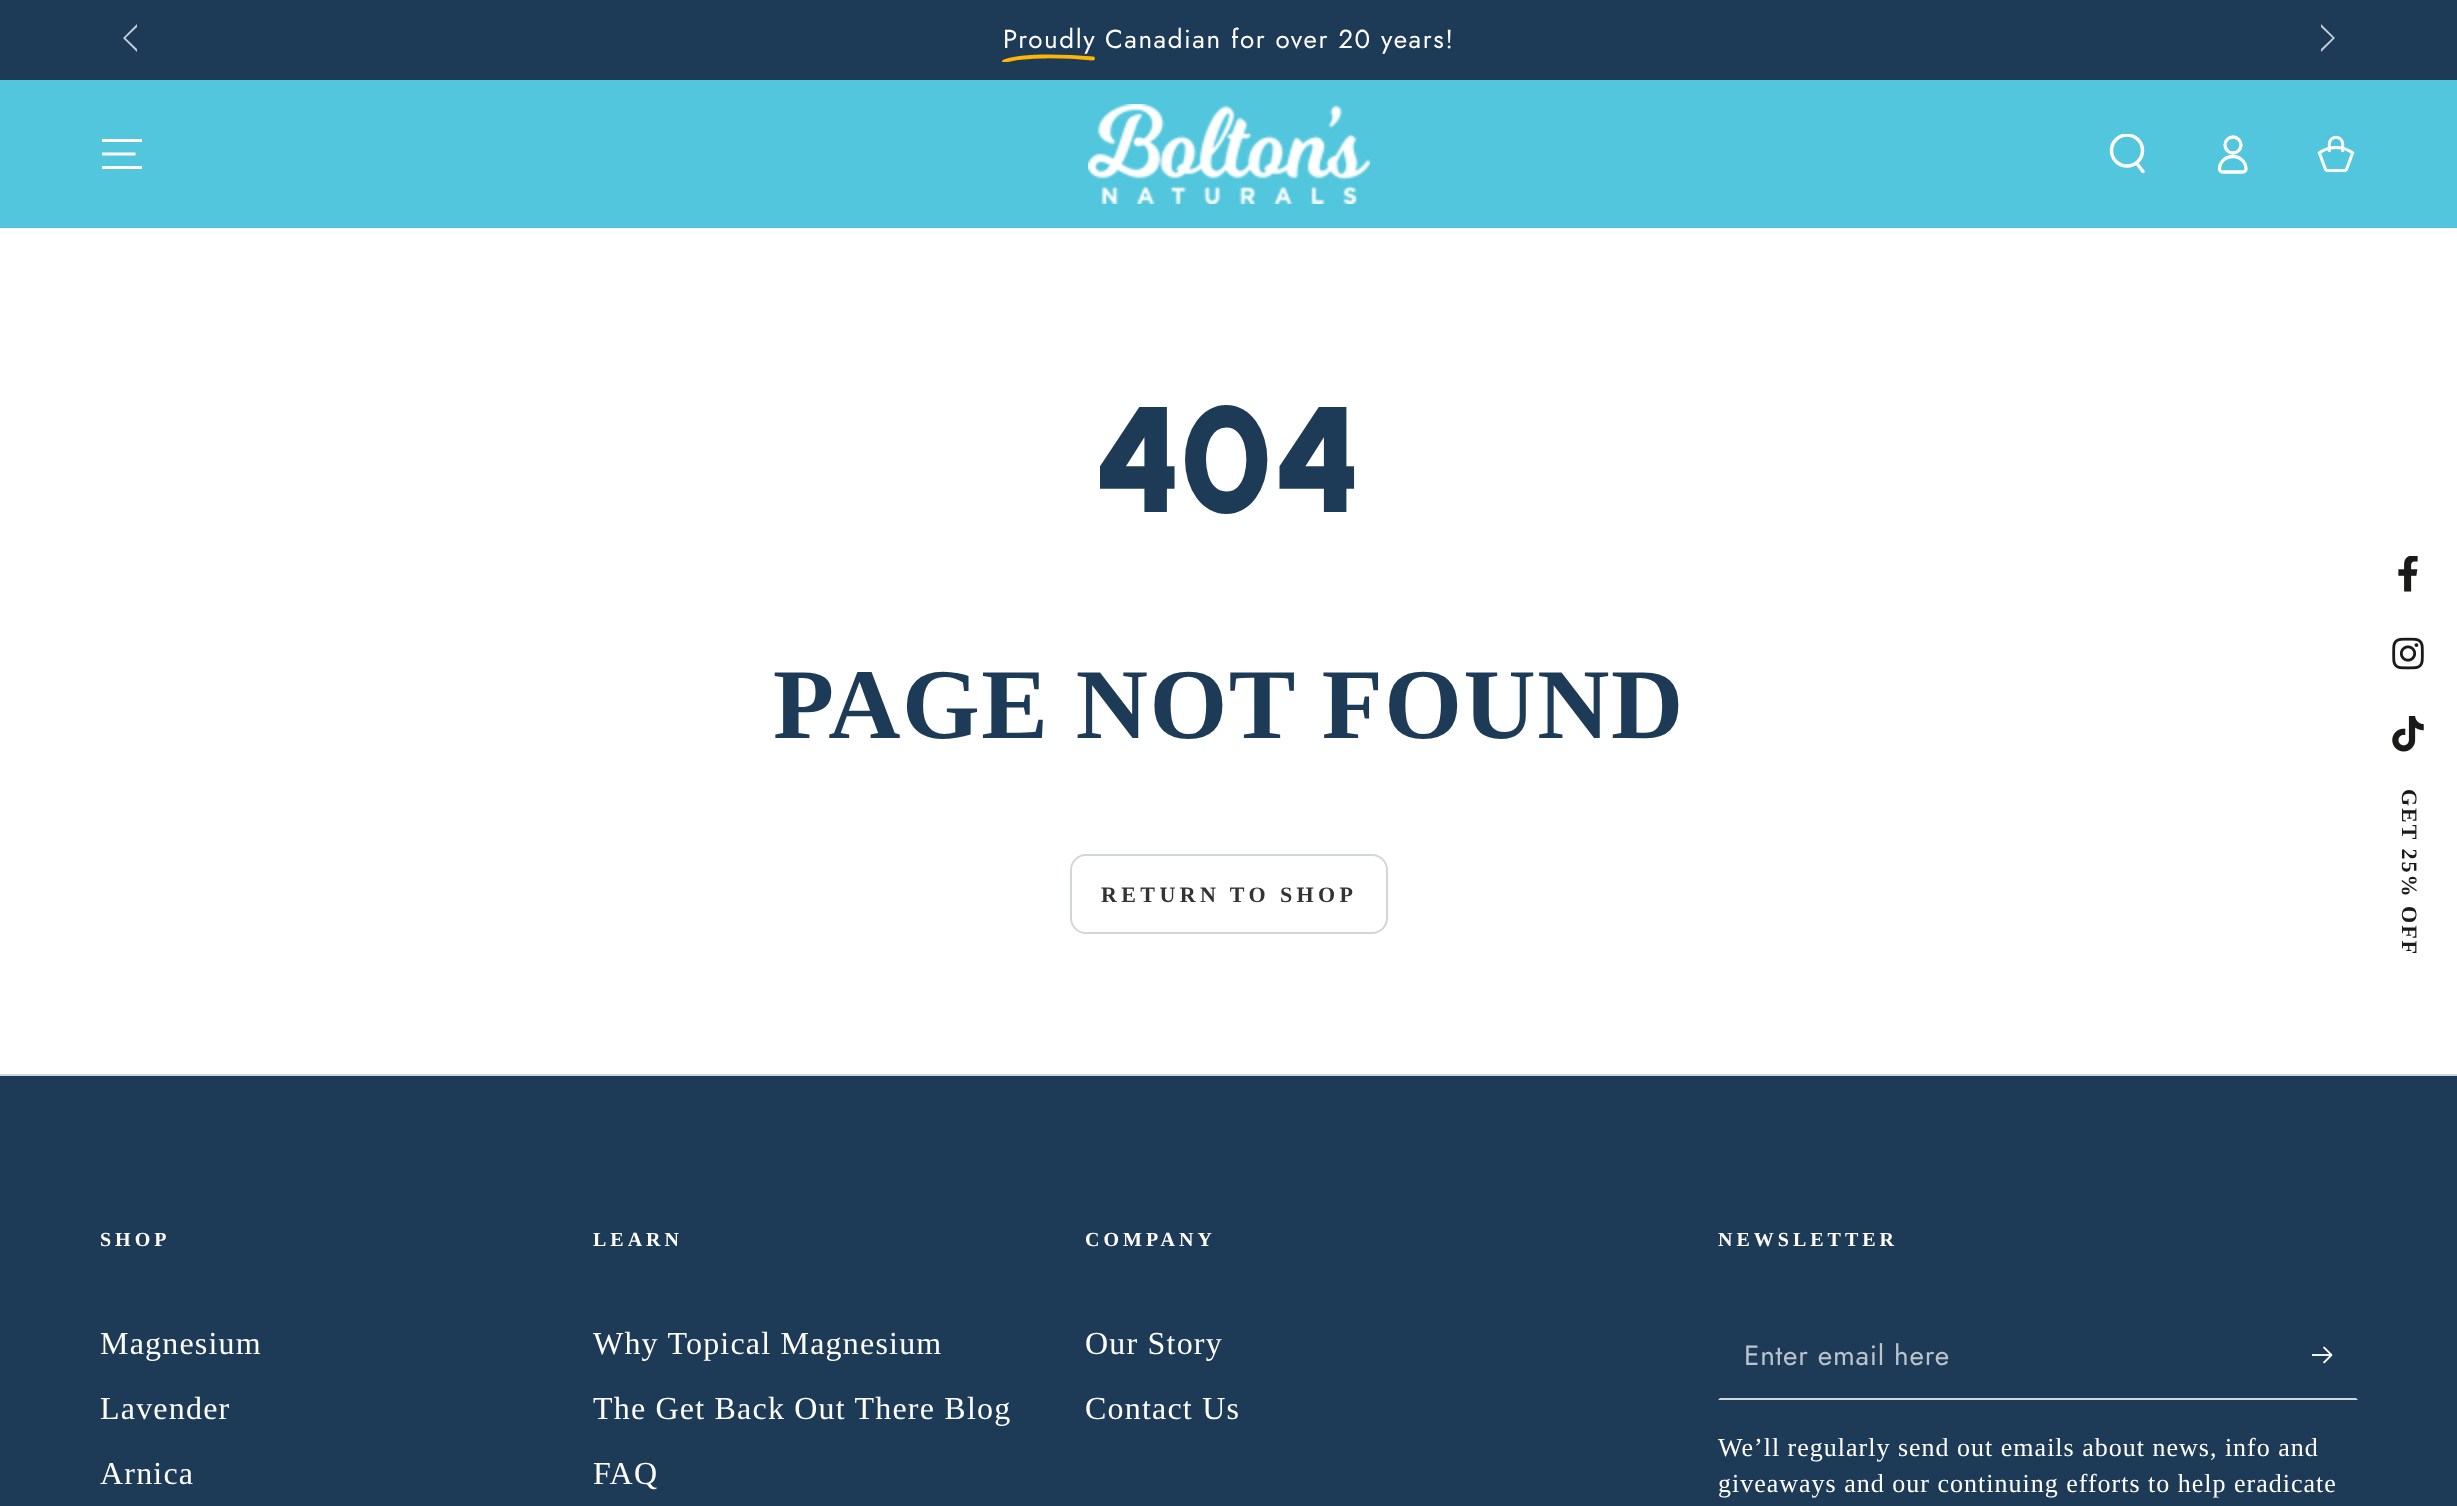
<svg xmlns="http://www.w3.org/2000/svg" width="2457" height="1506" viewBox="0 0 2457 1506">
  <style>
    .t1 { font: 26px Jost; letter-spacing: 1.55px; fill: #fff; }
    .t2 { font: 900 150px Urbanist; letter-spacing: 1.5px; fill: #1d3a57; }
    .t3 { font: bold 100px Liberation Serif; letter-spacing: 1.5px; fill: #1d3a57; }
    .t4 { font: bold 22px Liberation Serif; letter-spacing: 4.4px; fill: #333; }
    .t5 { font: bold 20px Liberation Serif; letter-spacing: 4px; fill: #fff; }
    .t6 { font: 32px Liberation Serif; letter-spacing: 1.2px; fill: #fff; }
    .t7 { font: 28px Jost; letter-spacing: 0.75px; fill: #bbc4cd; }
    .t8 { font: 26px Liberation Serif; letter-spacing: 1px; fill: #fff; }
    .t9 { font: bold 22px Liberation Serif; letter-spacing: 2px; fill: #1a1b18; }
  </style>
  <defs>
    <clipPath id="clip1"><rect x="1002" y="54" width="94" height="8"/></clipPath>
    <clipPath id="clip2"><rect x="2108" y="134" width="40" height="40"/></clipPath>
  </defs>
  <rect width="100%" height="100%" fill="#fff"/>
  <rect x="0" y="0" width="2457" height="80" fill="#1d3a57"/>
  <path d="M123 38L137 52V49L125.5 38L137 27V24Z" fill="#c7ced5" fill-rule="evenodd"/>
  <path d="M2335 38L2321 52V49L2332.5 38L2321 27V24Z" fill="#c7ced5" fill-rule="evenodd"/>
  <text x="1003" y="48" class="t1">Proudly</text>
  <g clip-path="url(#clip1)">
    <path d="M1004 61.5C1011 58.5 1021 57 1041.5 56.5C1048.5 56.5 1066.5 56 1093 58.5" fill="none" stroke="#ffb503" stroke-width="3.8" stroke-linecap="round"/>
  </g>
  <text x="1105" y="48" class="t1">Canadian for over 20 years!</text>
  <rect x="0" y="80" width="2457" height="148" fill="#51c6dd"/>
  <path d="M102 167.5H142M102 154H135.5M102 140.5H142" fill="none" stroke="#fff" stroke-width="3.2"/>
  <image x="1088" y="104" width="282" height="100" href="images/1.png"/>
  <g clip-path="url(#clip2)">
    <circle cx="2127" cy="150.5" r="15.5" fill="none" stroke="#fff" stroke-width="3.5"/>
  </g>
  <path d="M2136.5 163L2143 171.5" fill="none" stroke="#fff" stroke-width="3.5" stroke-linecap="round"/>
  <path d="M2233 156.5C2225.5 156.5 2219.5 162 2219.5 169C2219.5 170.5 2221 172 2222.5 172H2243C2244.5 172 2246 170.5 2246 169C2246 162 2240 156.5 2233 156.5Z" fill="none" stroke="#fff" stroke-width="3.3"/>
  <circle cx="2233" cy="145" r="8" fill="none" stroke="#fff" stroke-width="3.3"/>
  <image x="2317" y="135" width="38" height="38" href="images/2.png"/>
  <text x="1094" y="512" class="t2">404</text>
  <text x="773" y="738" class="t3">PAGE NOT FOUND</text>
  <rect x="1071" y="855" width="316" height="78" rx="15" fill="none" stroke="#d2d5d9" stroke-width="2"/>
  <text x="1101" y="902" class="t4">RETURN TO SHOP</text>
  <rect x="0" y="1076" width="2457" height="430" fill="#1d3a57"/>
  <rect x="0" y="1074" width="2457" height="2" fill="#d2d5d9"/>
  <text x="100" y="1246" class="t5">SHOP</text>
  <text x="100" y="1354" class="t6">Magnesium</text>
  <text x="100" y="1419" class="t6">Lavender</text>
  <text x="100" y="1484" class="t6">Arnica</text>
  <text x="593" y="1246" class="t5">LEARN</text>
  <text x="593" y="1354" class="t6">Why Topical Magnesium</text>
  <text x="593" y="1419" class="t6">The Get Back Out There Blog</text>
  <text x="593" y="1484" class="t6">FAQ</text>
  <text x="1085" y="1246" class="t5">COMPANY</text>
  <text x="1085" y="1354" class="t6">Our Story</text>
  <text x="1085" y="1419" class="t6">Contact Us</text>
  <text x="1718" y="1246" class="t5">NEWSLETTER</text>
  <path d="M2358 1400H1718L1720 1398H2356Z" fill="#d2d5d9"/>
  <text x="1744" y="1365" class="t7">Enter email here</text>
  <image x="2312" y="1346" width="21" height="18" href="images/3.png"/>
  <text x="1718" y="1456" class="t8">We’ll regularly send out emails about news, info and</text>
  <text x="1718" y="1492" class="t8">giveaways and our continuing efforts to help eradicate</text>
  <image x="2398" y="556" width="20" height="36" href="images/4.png"/>
  <image x="2392" y="637" width="32" height="33" href="images/5.png"/>
  <image x="2392" y="716" width="32" height="36" href="images/6.png"/>
  <text x="2402" y="789" transform="rotate(90 2402 789)" class="t9">GET 25% OFF</text>
</svg>
